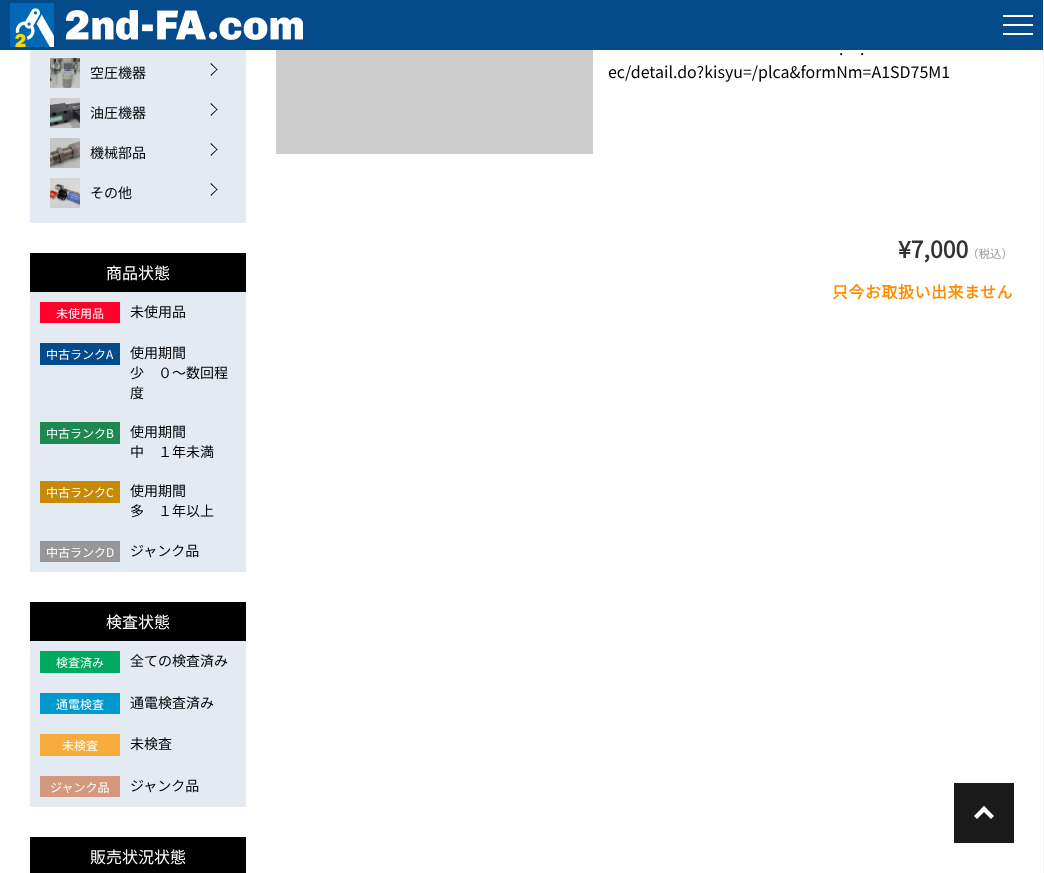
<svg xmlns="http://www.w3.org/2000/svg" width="1044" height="873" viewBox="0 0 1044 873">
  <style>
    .t1 { font: 14px Noto Sans CJK JP; fill: #000; }
    .t2 { font: 16px Noto Sans CJK JP; fill: #fff; }
    .t3 { font: 12px Noto Sans CJK JP; fill: #fff; }
    .t4 { font: 16px Noto Sans CJK JP; fill: #000; }
    .t5 { font: bold 23px Noto Sans CJK JP; fill: #333; }
    .t6 { font: 11.5px Noto Sans CJK JP; fill: #999; }
    .t7 { font: bold 16px Noto Sans CJK JP; letter-spacing: 0.5px; fill: #ff8c00; }
  </style>
  <rect width="100%" height="100%" fill="#fff"/>
  <rect x="1043" y="0" width="1" height="873" fill="#f2f2f2"/>
  <rect x="0" y="0" width="1043" height="50" fill="#054b8b"/>
  <image x="10" y="3" width="293" height="44" href="images/1.png"/>
  <rect x="1003" y="15" width="30" height="2" fill="#fff"/>
  <rect x="1003" y="24" width="30" height="2" fill="#fff"/>
  <rect x="1003" y="33" width="30" height="2" fill="#fff"/>
  <rect x="30" y="50" width="216" height="173" fill="#e3eaf2"/>
  <image x="50" y="58" width="30" height="30" href="images/2.png"/>
  <text x="90" y="78" class="t1">空圧機器</text>
  <path d="M211 63L217.5 69.5L217 70L210.5 64Z" fill="#000"/>
  <path d="M217 69L217.5 69.5L211 76L210.5 75Z" fill="#000"/>
  <image x="50" y="98" width="30" height="30" href="images/3.png"/>
  <text x="90" y="118" class="t1">油圧機器</text>
  <path d="M211 103L217.5 109.5L217 110L210.5 104Z" fill="#000"/>
  <path d="M217 109L217.5 109.5L211 116L210.5 115Z" fill="#000"/>
  <image x="50" y="138" width="30" height="30" href="images/4.png"/>
  <text x="90" y="158" class="t1">機械部品</text>
  <path d="M211 143L217.5 149.5L217 150L210.5 144Z" fill="#000"/>
  <path d="M217 149L217.5 149.5L211 156L210.5 155Z" fill="#000"/>
  <image x="50" y="178" width="30" height="30" href="images/5.png"/>
  <text x="90" y="198" class="t1">その他</text>
  <path d="M211 183L217.5 189.5L217 190L210.5 184Z" fill="#000"/>
  <path d="M217 189L217.5 189.5L211 196L210.5 195Z" fill="#000"/>
  <rect x="30" y="253" width="216" height="39" fill="#000"/>
  <text x="106" y="279" class="t2">商品状態</text>
  <rect x="30" y="292" width="216" height="280" fill="#e3eaf2"/>
  <rect x="40" y="302" width="80" height="21" fill="#ff002a"/>
  <text x="56" y="318" class="t3">未使用品</text>
  <text x="130" y="317" class="t1">未使用品</text>
  <rect x="40" y="343" width="80" height="22" fill="#054b8b"/>
  <text x="46" y="359" class="t3">中古ランクA</text>
  <text x="130" y="358" class="t1">使用期間</text>
  <text x="130" y="378" class="t1">少　０～数回程</text>
  <text x="130" y="398" class="t1">度</text>
  <rect x="40" y="422" width="80" height="22" fill="#1d8852"/>
  <text x="46" y="438" class="t3">中古ランクB</text>
  <text x="130" y="437" class="t1">使用期間</text>
  <text x="130" y="457" class="t1">中　１年未満</text>
  <rect x="40" y="481" width="80" height="22" fill="#c68a09"/>
  <text x="46" y="497" class="t3">中古ランクC</text>
  <text x="130" y="496" class="t1">使用期間</text>
  <text x="130" y="516" class="t1">多　１年以上</text>
  <rect x="40" y="541" width="80" height="21" fill="#979797"/>
  <text x="46" y="557" class="t3">中古ランクD</text>
  <text x="130" y="556" class="t1">ジャンク品</text>
  <rect x="30" y="602" width="216" height="39" fill="#000"/>
  <text x="106" y="628" class="t2">検査状態</text>
  <rect x="30" y="641" width="216" height="166" fill="#e3eaf2"/>
  <rect x="40" y="651" width="80" height="22" fill="#00a960"/>
  <text x="56" y="667" class="t3">検査済み</text>
  <text x="130" y="666" class="t1">全ての検査済み</text>
  <rect x="40" y="693" width="80" height="21" fill="#0099ce"/>
  <text x="56" y="709" class="t3">通電検査</text>
  <text x="130" y="708" class="t1">通電検査済み</text>
  <rect x="40" y="734" width="80" height="22" fill="#f6ad3c"/>
  <text x="62" y="750" class="t3">未検査</text>
  <text x="130" y="749" class="t1">未検査</text>
  <rect x="40" y="776" width="80" height="21" fill="#d4987e"/>
  <text x="50" y="792" class="t3">ジャンク品</text>
  <text x="130" y="791" class="t1">ジャンク品</text>
  <rect x="30" y="837" width="216" height="36" fill="#000"/>
  <text x="90" y="863" class="t2">販売状況状態</text>
  <image x="276" y="50" width="317" height="104" href="images/6.png"/>
  <text x="839" y="55" class="t4">.</text>
  <text x="860" y="55" class="t4">.</text>
  <text x="608" y="78" class="t4">ec/detail.do?kisyu=/plca&amp;formNm=A1SD75M1</text>
  <text x="898" y="258" class="t5">¥7,000</text>
  <text x="967" y="258" class="t6">（税込）</text>
  <text x="832" y="298" class="t7">只今お取扱い出来ません</text>
  <rect x="954" y="783" width="60" height="60" fill="#1a1a1a"/>
  <path d="M984 806L994 816L991 819L981 809Z" fill="#fff"/>
  <path d="M984 806L987 809L977 819L974 816Z" fill="#fff"/>
</svg>
